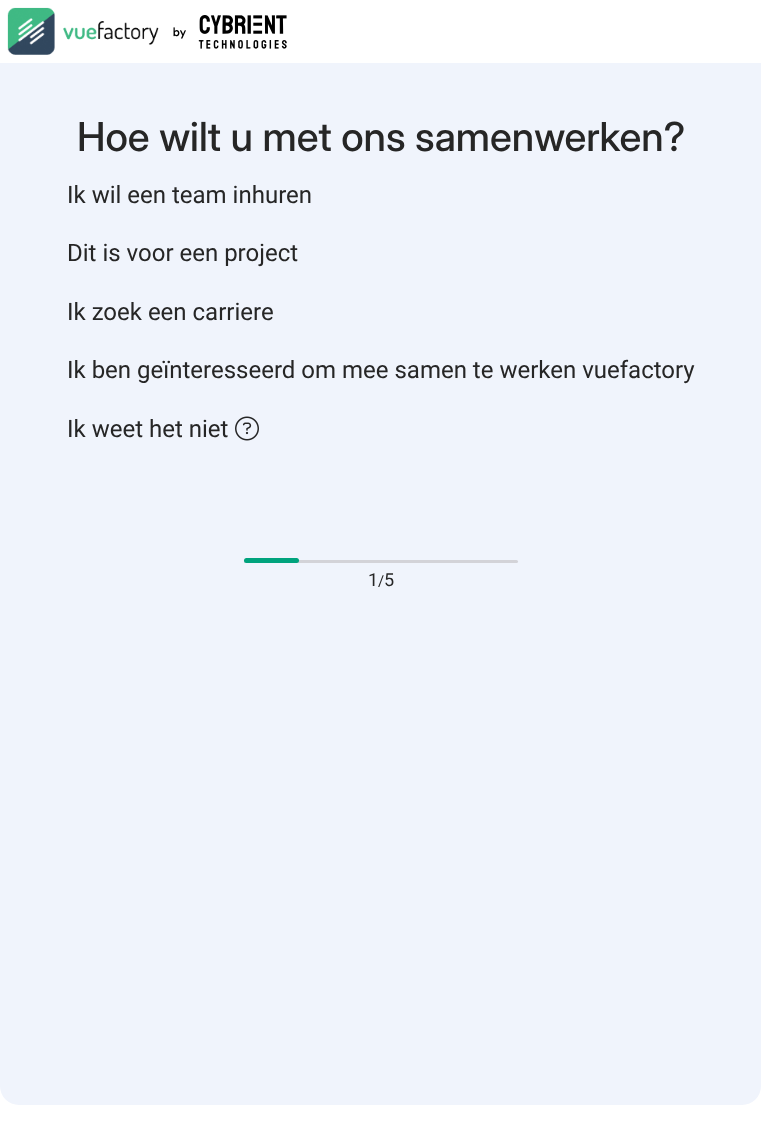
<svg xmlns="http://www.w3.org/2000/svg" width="761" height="1128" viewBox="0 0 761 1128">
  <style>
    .t1 { font: 500 40px Inter; fill: #262626; }
    .t2 { font: 24px Roboto; fill: #262626; }
    .t3 { font: 18px Roboto; fill: #262626; }
    .t4 { font: 15px Roboto; fill: #262626; }
  </style>
  <rect width="100%" height="100%" fill="#fff"/>
  <image x="7" y="7" width="152" height="48" href="images/1.png"/>
  <image x="173" y="15" width="114" height="34" href="images/2.png"/>
  <path d="M0 63H761V1086C761 1096.5 752.5 1105 742 1105H19C8.5 1105 0 1096.5 0 1086Z" fill="#f0f4fc"/>
  <text x="77" y="151" class="t1">Hoe wilt u met ons samenwerken?</text>
  <text x="67" y="203" class="t2">Ik wil een team inhuren</text>
  <text x="67" y="261" class="t2">Dit is voor een project</text>
  <text x="67" y="320" class="t2">Ik zoek een carriere</text>
  <text x="67" y="378" class="t2">Ik ben geïnteresseerd om mee samen te werken vuefactory</text>
  <text x="67" y="437" class="t2">Ik weet het niet</text>
  <image x="235" y="416" width="24" height="25" href="images/3.png"/>
  <rect x="244" y="560" width="274" height="3" rx="1.5" fill="#d3d3d8"/>
  <rect x="244" y="558" width="55" height="5" rx="2.5" fill="#00a37d"/>
  <text x="368" y="586" class="t3">1</text>
  <text x="378" y="586" class="t4">/</text>
  <text x="384" y="586" class="t3">5</text>
</svg>
